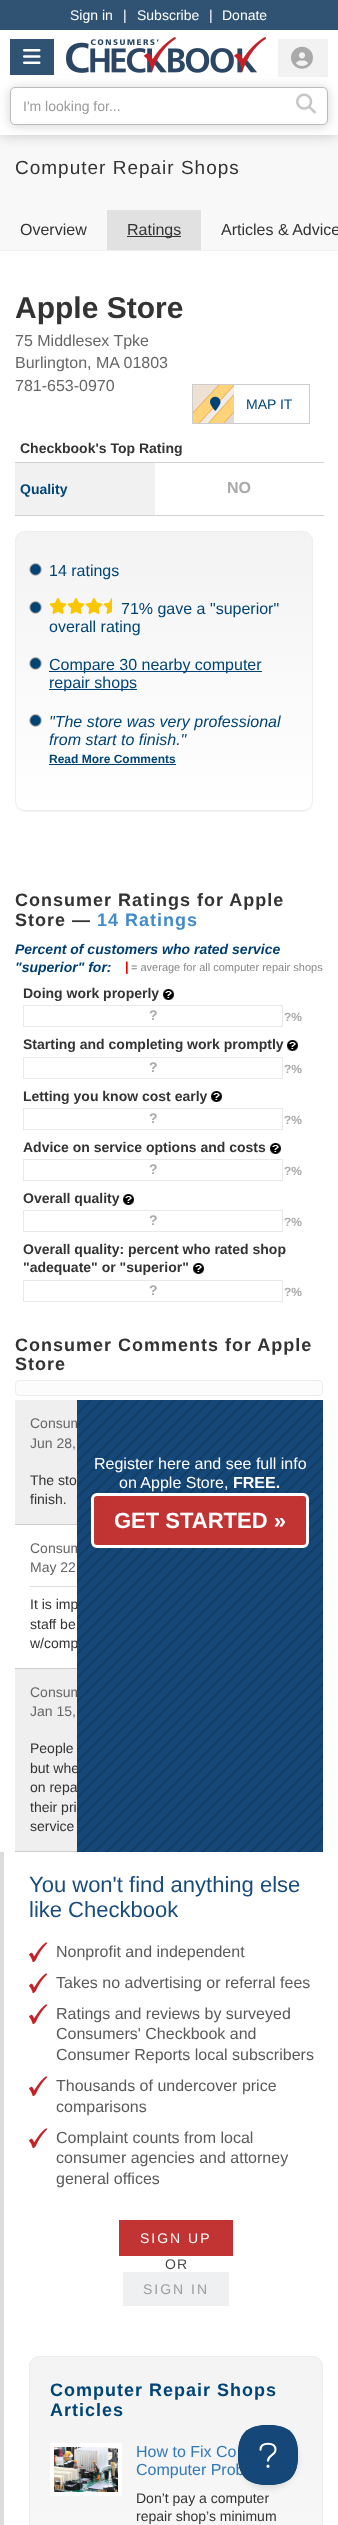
<svg xmlns="http://www.w3.org/2000/svg" width="338" height="2525" viewBox="0 0 338 2525">
  <style>
    .t1 { font: 14px Liberation Sans; fill: #fff; }
    .t2 { font: 14px Liberation Sans; fill: #9b9b9b; }
    .t3 { font: 19px Liberation Sans; letter-spacing: 1px; fill: #333; }
    .t4 { font: 16px Liberation Sans; fill: #333; }
    .t5 { font: bold 30px Liberation Sans; fill: #333; }
    .t6 { font: 16px Liberation Sans; fill: #666; }
    .t7 { font: 14px Liberation Sans; fill: #004476; }
    .t8 { font: bold 14px Liberation Sans; fill: #333; }
    .t9 { font: bold 14px Liberation Sans; fill: #004476; }
    .t10 { font: bold 16px Liberation Sans; fill: #aaa; }
    .t11 { font: 16px Liberation Sans; fill: #004476; }
    .t12 { font: italic 16px Liberation Sans; fill: #004476; }
    .t13 { font: bold 12px Liberation Sans; fill: #004476; }
    .t14 { font: bold 18px Liberation Sans; letter-spacing: 1px; fill: #333; }
    .t15 { font: bold 18px Liberation Sans; letter-spacing: 1px; fill: #428bca; }
    .t16 { font: italic bold 14px Liberation Sans; fill: #003e72; }
    .t17 { font: bold 13px Liberation Sans; fill: #f20000; }
    .t18 { font: 11px Liberation Sans; fill: #888; }
    .t19 { font: bold 14px Liberation Sans; fill: #aaa; }
    .t20 { font: bold 12px Liberation Sans; fill: #aaa; }
    .t21 { font: 14px Liberation Sans; fill: #666; }
    .t22 { font: 14px Liberation Sans; fill: #333; }
    .t23 { font: 16px Liberation Sans; fill: #fff; }
    .t24 { font: bold 16px Liberation Sans; fill: #fff; }
    .t25 { font: bold 22px Liberation Sans; fill: #fff; }
    .t26 { font: 22px Liberation Sans; fill: #194b7b; }
    .t27 { font: 16px Liberation Sans; fill: #5a5a5a; }
    .t28 { font: 14px Liberation Sans; letter-spacing: 2px; fill: #fff; }
    .t29 { font: 14px Liberation Sans; letter-spacing: 1px; fill: #4a4a4a; }
    .t30 { font: 14px Liberation Sans; letter-spacing: 2px; fill: #9b9b9b; }
    .t31 { font: bold 18px Liberation Sans; letter-spacing: 1px; fill: #004476; }
    .t32 { font: 16px Liberation Sans; fill: #337ab7; }
  </style>
  <defs>
    <clipPath id="clip1"><rect x="15" y="531" width="298" height="280" rx="10"/></clipPath>
    <linearGradient id="g1" gradientUnits="userSpaceOnUse" x1="164" y1="532" x2="164" y2="810"><stop offset="0" stop-color="#f3f3f3"/><stop offset="1" stop-color="#fff"/></linearGradient>
    <clipPath id="clip2"><rect x="29" y="2356" width="294" height="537" rx="10"/></clipPath>
    <linearGradient id="g2" gradientUnits="userSpaceOnUse" x1="176" y1="2357" x2="176" y2="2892"><stop offset="0" stop-color="#f3f3f3"/><stop offset="1" stop-color="#fff"/></linearGradient>
  </defs>
  <rect width="100%" height="100%" fill="#fff"/>
  <rect x="0" y="135" width="338" height="115" fill="#f8f8f8"/>
  <rect x="0" y="30" width="338" height="105" fill="#00000033" filter="blur(7px)"/>
  <rect x="0" y="0" width="338" height="30" fill="#305373"/>
  <text x="70" y="20" class="t1">Sign in</text>
  <text x="123" y="20" class="t1">|</text>
  <text x="137" y="20" class="t1">Subscribe</text>
  <text x="209" y="20" class="t1">|</text>
  <text x="222" y="20" class="t1">Donate</text>
  <rect x="0" y="30" width="338" height="105" fill="#fff"/>
  <rect x="10" y="39" width="44" height="36" fill="#305373"/>
  <image x="23" y="49" width="18" height="15" href="images/1.png"/>
  <image x="66" y="37" width="200" height="36" href="images/2.png"/>
  <rect x="10" y="88" width="318" height="38" rx="5" fill="#0000000f" filter="blur(8px)"/>
  <rect x="10" y="88" width="318" height="38" rx="5" fill="#0000001f" filter="blur(4px)"/>
  <rect x="278" y="39" width="50" height="38" fill="#f2f2f2"/>
  <image x="291" y="46" width="22" height="23" href="images/3.png"/>
  <rect x="10.5" y="87.5" width="317" height="37" rx="4.5" fill="#fff" stroke="#bcbcbc"/>
  <text x="23" y="111" class="t2">I'm looking for...</text>
  <image x="296" y="93" width="20" height="21" href="images/4.png"/>
  <rect x="0" y="250" width="338" height="1" fill="#f0f0f0"/>
  <text x="15" y="174" class="t3">Computer Repair Shops</text>
  <text x="20" y="235" class="t4">Overview</text>
  <rect x="107" y="210" width="94" height="40" fill="#e1e1e1"/>
  <rect x="127" y="236" width="54" height="1" fill="#333"/>
  <text x="127" y="235" class="t4">Ratings</text>
  <text x="221" y="235" class="t4">Articles &amp; Advice</text>
  <text x="15" y="318" class="t5">Apple Store</text>
  <text x="15" y="346" class="t6">75 Middlesex Tpke</text>
  <text x="15" y="368" class="t6">Burlington, MA 01803</text>
  <text x="15" y="391" class="t6">781-653-0970</text>
  <image x="193" y="385" width="41" height="38" href="images/5.png"/>
  <rect x="192.5" y="384.5" width="117" height="39" fill="none" stroke="#ccc"/>
  <image x="210" y="396" width="11" height="15" href="images/6.png"/>
  <text x="246" y="409" class="t7">MAP IT</text>
  <text x="20" y="453" class="t8">Checkbook's Top Rating</text>
  <rect x="15" y="463" width="140" height="52" fill="#f1f1f1"/>
  <text x="20" y="494" class="t9">Quality</text>
  <rect x="15" y="462" width="309" height="1" fill="#d1d1d1"/>
  <rect x="15" y="515" width="309" height="1" fill="#d1d1d1"/>
  <text x="227" y="493" class="t10">NO</text>
  <rect x="15" y="532" width="298" height="280" rx="10" fill="#0000000d" filter="blur(0.5px)"/>
  <g clip-path="url(#clip1)">
    <rect x="15" y="532" width="298" height="278" fill="url(#g1)"/>
  </g>
  <rect x="15.5" y="531.5" width="297" height="279" rx="9.5" fill="none" stroke="#f0eded"/>
  <image x="29" y="563" width="13" height="13" href="images/7.png"/>
  <text x="49" y="576" class="t11">14 ratings</text>
  <image x="29" y="601" width="13" height="13" href="images/8.png"/>
  <image x="49" y="598" width="18" height="16" href="images/9.png"/>
  <image x="67" y="598" width="18" height="16" href="images/9.png"/>
  <image x="85" y="598" width="18" height="16" href="images/9.png"/>
  <image x="103" y="598" width="9" height="16" href="images/10.png"/>
  <text x="121" y="614" class="t11">71% gave a "superior"</text>
  <text x="49" y="632" class="t11">overall rating</text>
  <image x="29" y="657" width="13" height="13" href="images/11.png"/>
  <rect x="49" y="671" width="213" height="1" fill="#047"/>
  <text x="49" y="670" class="t11">Compare 30 nearby computer</text>
  <rect x="49" y="689" width="88" height="1" fill="#047"/>
  <text x="49" y="688" class="t11">repair shops</text>
  <image x="29" y="714" width="13" height="13" href="images/12.png"/>
  <text x="49" y="727" class="t12">"The store was very professional</text>
  <text x="49" y="745" class="t12">from start to finish."</text>
  <text x="49" y="763" class="t13">Read More Comments</text>
  <rect x="49" y="764" width="127" height="1" fill="#047"/>
  <text x="15" y="906" class="t14">Consumer Ratings for Apple</text>
  <text x="15" y="926" class="t14">Store —</text>
  <text x="97" y="926" class="t15">14 Ratings</text>
  <text x="15" y="954" class="t16">Percent of customers who rated service</text>
  <text x="15" y="972" class="t16">"superior" for:</text>
  <text x="125" y="971" class="t17">|</text>
  <text x="131" y="971" class="t18">= average for all computer repair shops</text>
  <text x="23" y="998" class="t8">Doing work properly</text>
  <image x="163" y="989" width="11" height="11" href="images/13.png"/>
  <rect x="23.5" y="1005.5" width="259" height="21" fill="none" stroke="#e9e9e9"/>
  <text x="149" y="1020" class="t19">?</text>
  <text x="284" y="1021" class="t20">?%</text>
  <text x="23" y="1049" class="t8">Starting and completing work promptly</text>
  <image x="287" y="1040" width="11" height="11" href="images/13.png"/>
  <rect x="23.5" y="1057.5" width="259" height="21" fill="none" stroke="#e9e9e9"/>
  <text x="149" y="1072" class="t19">?</text>
  <text x="284" y="1073" class="t20">?%</text>
  <text x="23" y="1101" class="t8">Letting you know cost early</text>
  <image x="211" y="1091" width="11" height="11" href="images/13.png"/>
  <rect x="23.5" y="1108.5" width="259" height="21" fill="none" stroke="#e9e9e9"/>
  <text x="149" y="1123" class="t19">?</text>
  <text x="284" y="1124" class="t20">?%</text>
  <text x="23" y="1152" class="t8">Advice on service options and costs</text>
  <image x="270" y="1143" width="11" height="11" href="images/13.png"/>
  <rect x="23.5" y="1159.5" width="259" height="21" fill="none" stroke="#e9e9e9"/>
  <text x="149" y="1174" class="t19">?</text>
  <text x="284" y="1175" class="t20">?%</text>
  <text x="23" y="1203" class="t8">Overall quality</text>
  <image x="123" y="1194" width="11" height="11" href="images/13.png"/>
  <rect x="23.5" y="1210.5" width="259" height="21" fill="none" stroke="#e9e9e9"/>
  <text x="149" y="1225" class="t19">?</text>
  <text x="284" y="1226" class="t20">?%</text>
  <text x="23" y="1254" class="t8">Overall quality: percent who rated shop</text>
  <text x="23" y="1272" class="t8">"adequate" or "superior"</text>
  <image x="193" y="1263" width="11" height="11" href="images/13.png"/>
  <rect x="23.5" y="1280.5" width="259" height="21" fill="none" stroke="#e9e9e9"/>
  <text x="149" y="1295" class="t19">?</text>
  <text x="284" y="1296" class="t20">?%</text>
  <text x="15" y="1351" class="t14">Consumer Comments for Apple</text>
  <text x="15" y="1370" class="t14">Store</text>
  <rect x="15.5" y="1380.5" width="307" height="15" rx="3.5" fill="#fcfcfc" stroke="#f0eded"/>
  <rect x="15" y="1400" width="308" height="124" fill="#efefef"/>
  <rect x="15" y="1524" width="308" height="1" fill="#ccc"/>
  <text x="30" y="1428" class="t21">Consum</text>
  <text x="30" y="1448" class="t21">Jun 28,</text>
  <text x="30" y="1485" class="t22">The sto</text>
  <text x="30" y="1504" class="t22">finish.</text>
  <rect x="15" y="1668" width="308" height="1" fill="#ccc"/>
  <text x="30" y="1553" class="t21">Consum</text>
  <rect x="30" y="1586" width="278" height="1" fill="#ddd"/>
  <text x="30" y="1609" class="t22">It is imp</text>
  <text x="30" y="1648" class="t22">w/comp</text>
  <rect x="15" y="1669" width="308" height="182" fill="#efefef"/>
  <rect x="15" y="1851" width="308" height="1" fill="#ccc"/>
  <text x="30" y="1697" class="t21">Consum</text>
  <text x="30" y="1773" class="t22">but whe</text>
  <text x="30" y="1792" class="t22">on repa</text>
  <image x="77" y="1400" width="246" height="452" href="images/14.png"/>
  <text x="94" y="1469" class="t23">Register here and see full info</text>
  <text x="119" y="1488" class="t23">on Apple Store,</text>
  <text x="233" y="1488" class="t24">FREE.</text>
  <rect x="92.5" y="1494.5" width="215" height="52" rx="4.5" fill="#c13433" stroke="#fff" stroke-width="3"/>
  <text x="114" y="1528" class="t25">GET STARTED »</text>
  <text x="30" y="1572" class="t21">May 22</text>
  <text x="30" y="1629" class="t22">staff be</text>
  <text x="30" y="1716" class="t21">Jan 15,</text>
  <text x="30" y="1753" class="t22">People</text>
  <text x="30" y="1812" class="t22">their pri</text>
  <text x="30" y="1831" class="t22">service</text>
  <rect x="0" y="1852" width="4" height="673" fill="#dcdcdc"/>
  <text x="29" y="1892" class="t26">You won't find anything else</text>
  <text x="29" y="1917" class="t26">like Checkbook</text>
  <image x="29" y="1942" width="18" height="20" href="images/15.png"/>
  <text x="56" y="1957" class="t27">Nonprofit and independent</text>
  <image x="29" y="1973" width="18" height="20" href="images/15.png"/>
  <text x="56" y="1988" class="t27">Takes no advertising or referral fees</text>
  <image x="29" y="2004" width="18" height="20" href="images/15.png"/>
  <text x="56" y="2019" class="t27">Ratings and reviews by surveyed</text>
  <text x="56" y="2039" class="t27">Consumers' Checkbook and</text>
  <text x="56" y="2060" class="t27">Consumer Reports local subscribers</text>
  <image x="29" y="2076" width="18" height="20" href="images/15.png"/>
  <text x="56" y="2091" class="t27">Thousands of undercover price</text>
  <text x="56" y="2112" class="t27">comparisons</text>
  <image x="29" y="2128" width="18" height="20" href="images/15.png"/>
  <text x="56" y="2143" class="t27">Complaint counts from local</text>
  <text x="56" y="2163" class="t27">consumer agencies and attorney</text>
  <text x="56" y="2184" class="t27">general offices</text>
  <rect x="119" y="2220" width="114" height="36" fill="#c13433"/>
  <text x="140" y="2243" class="t28">SIGN UP</text>
  <text x="165" y="2269" class="t29">OR</text>
  <rect x="123" y="2272" width="106" height="34" fill="#eff0f1"/>
  <text x="143" y="2294" class="t30">SIGN IN</text>
  <g clip-path="url(#clip2)">
    <rect x="29" y="2357" width="294" height="168" fill="url(#g2)"/>
  </g>
  <rect x="29.5" y="2356.5" width="293" height="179" rx="9.5" fill="none" stroke="#f0eded"/>
  <text x="50" y="2396" class="t31">Computer Repair Shops</text>
  <text x="50" y="2416" class="t31">Articles</text>
  <rect x="52" y="2445" width="68" height="49" fill="none" stroke="#fff" stroke-width="4"/>
  <image x="54" y="2447" width="64" height="45" href="images/16.png"/>
  <text x="136" y="2457" class="t32">How to Fix Co</text>
  <text x="136" y="2475" class="t32">Computer Prob</text>
  <text x="136" y="2503" class="t22">Don’t pay a computer</text>
  <text x="136" y="2521" class="t22">repair shop’s minimum</text>
  <rect x="238" y="2429" width="60" height="60" rx="30" fill="#0000001a" filter="blur(3.5px)"/>
  <image x="238" y="2425" width="60" height="60" href="images/17.png"/>
</svg>
